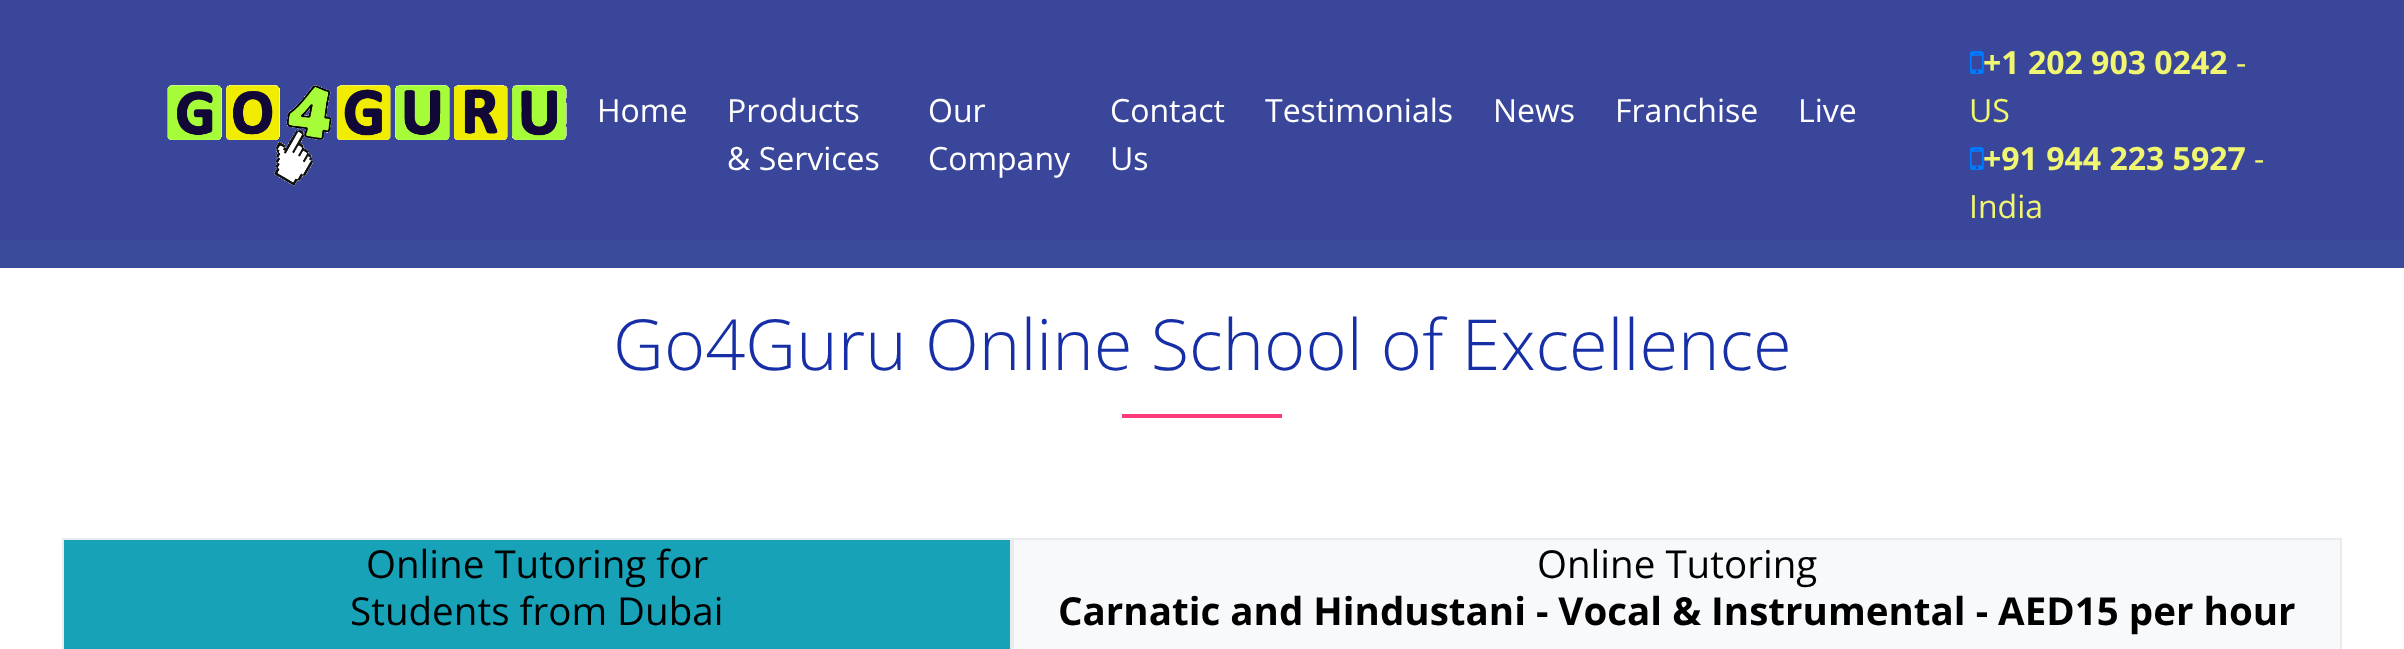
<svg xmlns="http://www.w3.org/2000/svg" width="2404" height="649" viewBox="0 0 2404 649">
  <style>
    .t1 { font: 32px Open Sans; fill: #fff; }
    .t2 { font: bold 32px Open Sans; fill: #f1f670; }
    .t3 { font: 32px Open Sans; fill: #f1f670; }
    .t4 { font: 300 70.4px Open Sans; fill: #172fa6; }
    .t5 { font: 38.55px Open Sans; fill: #000; }
    .t6 { font: bold 38.55px Open Sans; fill: #000; }
  </style>
  <rect width="100%" height="100%" fill="#39469a"/>
  <image x="167" y="85" width="400" height="101" href="images/1.png"/>
  <text x="597" y="122" class="t1">Home</text>
  <text x="727" y="122" class="t1">Products</text>
  <text x="727" y="170" class="t1">&amp; Services</text>
  <text x="928" y="122" class="t1">Our</text>
  <text x="928" y="170" class="t1">Company</text>
  <text x="1110" y="122" class="t1">Contact</text>
  <text x="1110" y="170" class="t1">Us</text>
  <text x="1265" y="122" class="t1">Testimonials</text>
  <text x="1493" y="122" class="t1">News</text>
  <text x="1615" y="122" class="t1">Franchise</text>
  <text x="1798" y="122" class="t1">Live</text>
  <image x="1970" y="51" width="14" height="23" href="images/2.png"/>
  <text x="1983" y="74" class="t2">+1 202 903 0242</text>
  <text x="2236" y="74" class="t3">-</text>
  <text x="1969" y="122" class="t3">US</text>
  <image x="1970" y="147" width="14" height="23" href="images/2.png"/>
  <text x="1983" y="170" class="t2">+91 944 223 5927</text>
  <text x="2254" y="170" class="t3">-</text>
  <text x="1969" y="218" class="t3">India</text>
  <rect x="0" y="268" width="2404" height="381" fill="#fff"/>
  <rect x="0" y="240" width="2404" height="28" fill="#3b4b9b"/>
  <text x="613" y="370" class="t4">Go4Guru Online School of Excellence</text>
  <rect x="1122" y="414" width="160" height="4" fill="#fb397d"/>
  <rect x="63" y="539" width="948" height="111" fill="#17a2b8" stroke="#e9ecef" stroke-width="2"/>
  <text x="366" y="578" class="t5">Online Tutoring for</text>
  <text x="350" y="625" class="t5">Students from Dubai</text>
  <rect x="1013" y="539" width="1328" height="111" fill="#f8f9fa" stroke="#e9ecef" stroke-width="2"/>
  <text x="1537" y="578" class="t5">Online Tutoring</text>
  <text x="1058" y="625" class="t6">Carnatic and Hindustani - Vocal &amp; Instrumental - AED15 per hour</text>
</svg>
